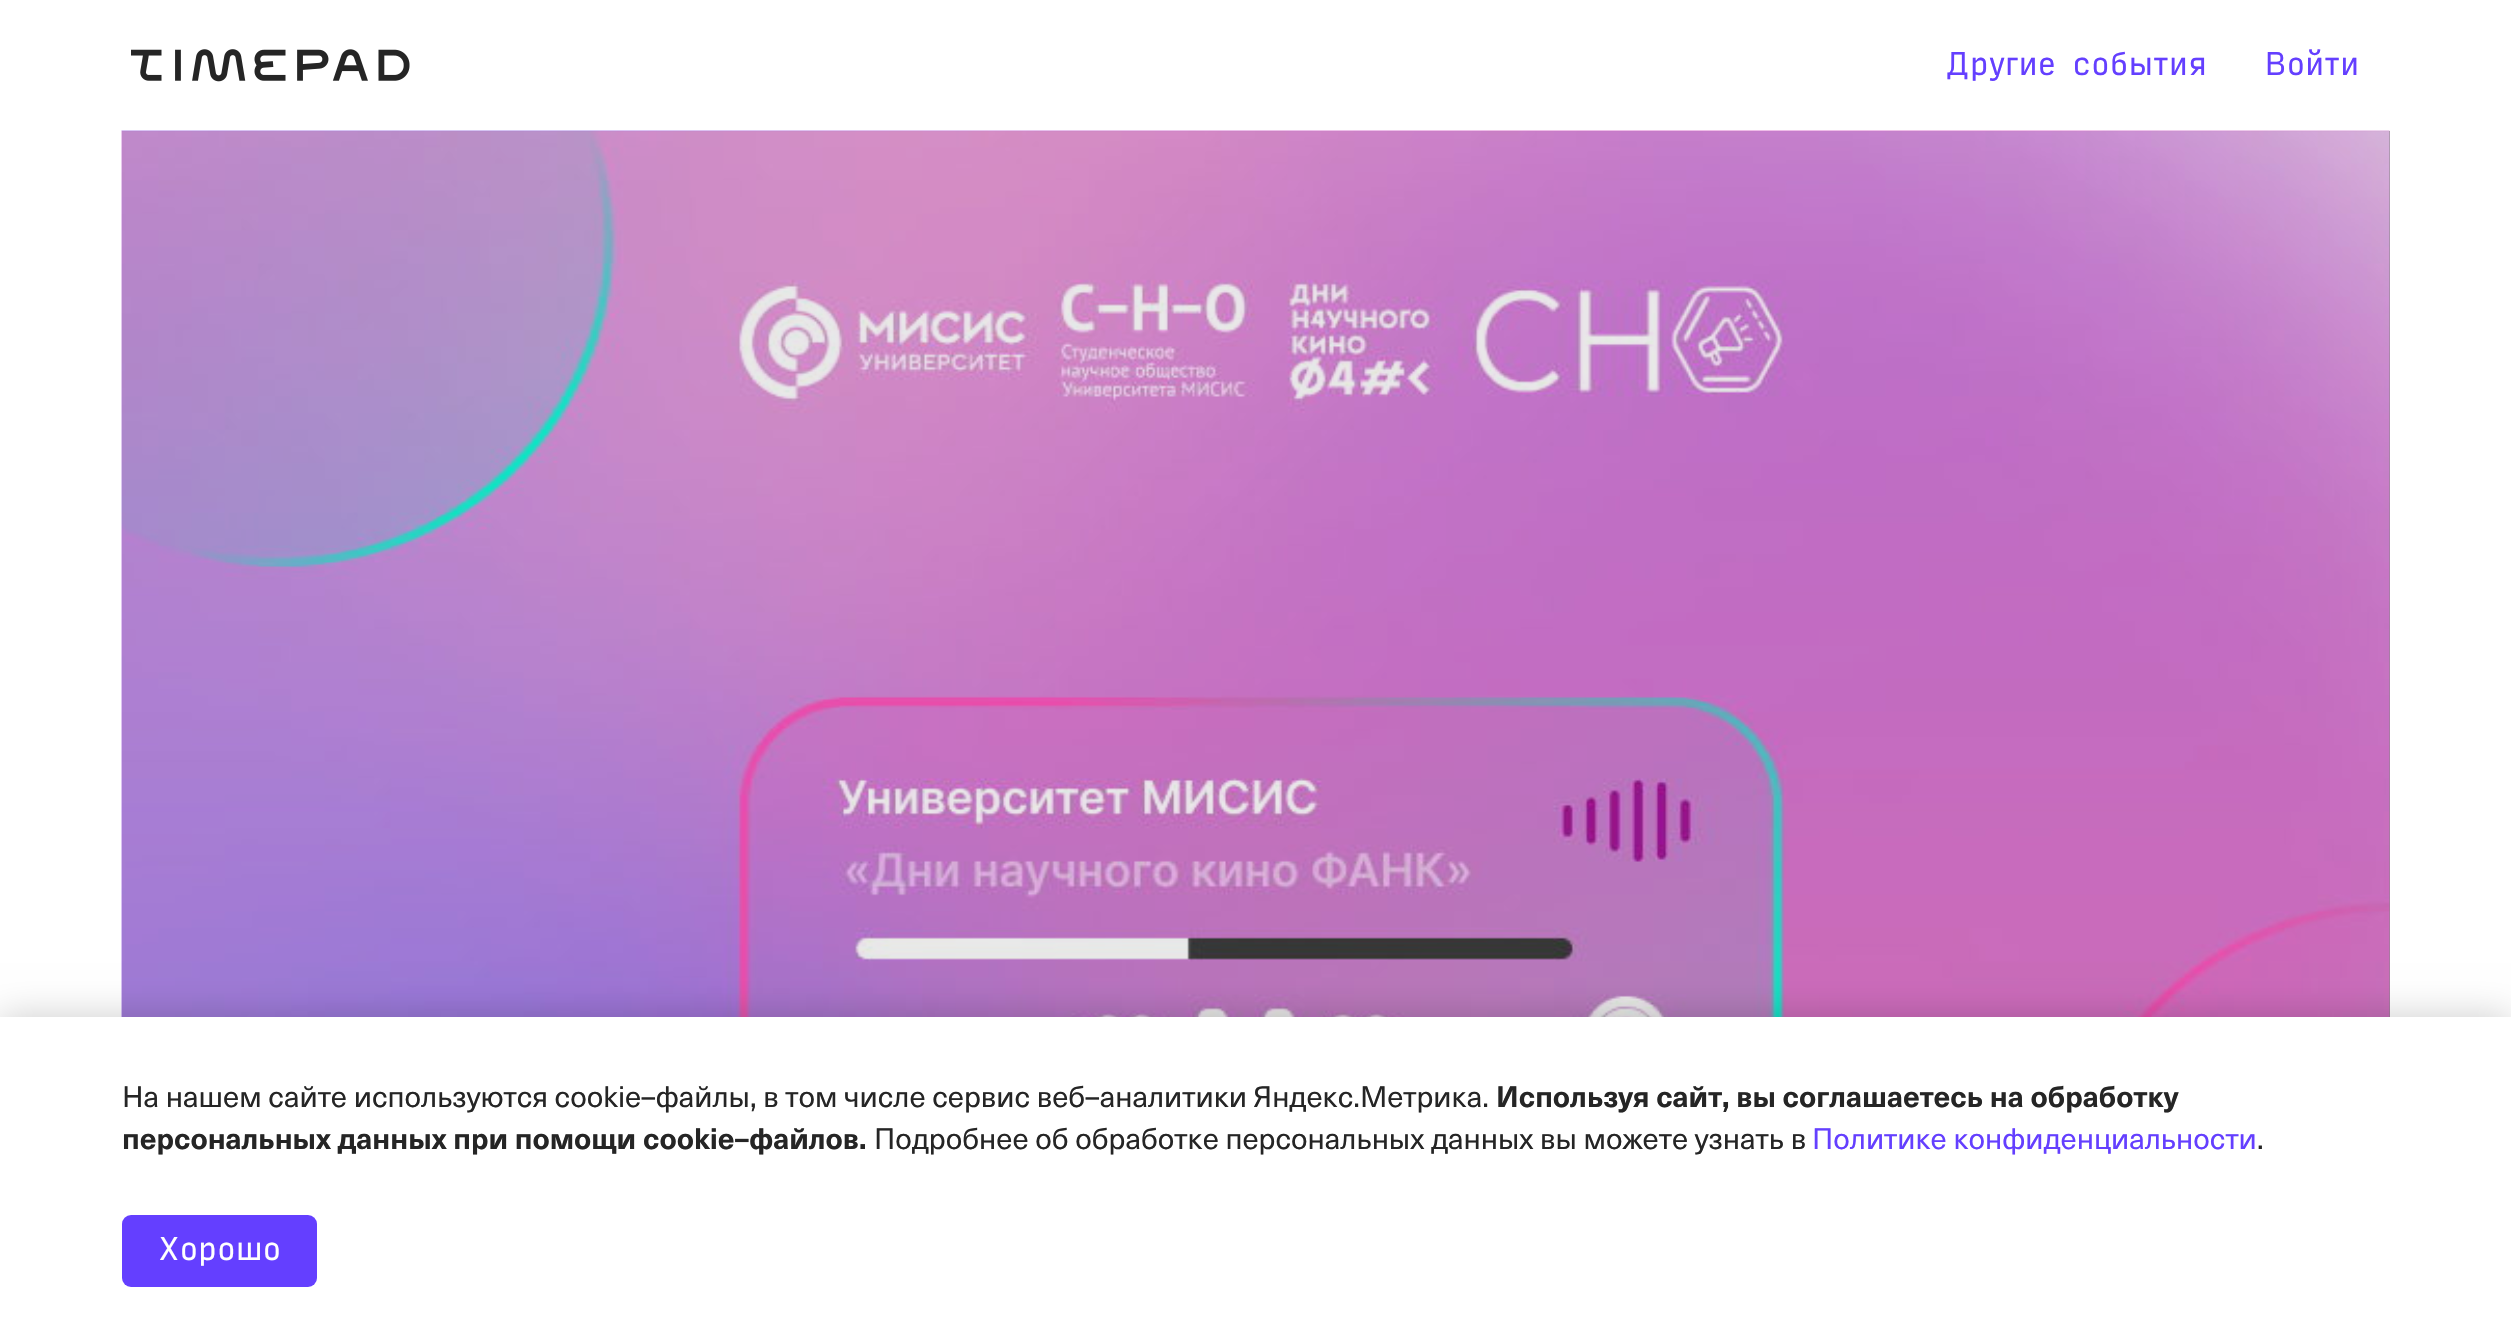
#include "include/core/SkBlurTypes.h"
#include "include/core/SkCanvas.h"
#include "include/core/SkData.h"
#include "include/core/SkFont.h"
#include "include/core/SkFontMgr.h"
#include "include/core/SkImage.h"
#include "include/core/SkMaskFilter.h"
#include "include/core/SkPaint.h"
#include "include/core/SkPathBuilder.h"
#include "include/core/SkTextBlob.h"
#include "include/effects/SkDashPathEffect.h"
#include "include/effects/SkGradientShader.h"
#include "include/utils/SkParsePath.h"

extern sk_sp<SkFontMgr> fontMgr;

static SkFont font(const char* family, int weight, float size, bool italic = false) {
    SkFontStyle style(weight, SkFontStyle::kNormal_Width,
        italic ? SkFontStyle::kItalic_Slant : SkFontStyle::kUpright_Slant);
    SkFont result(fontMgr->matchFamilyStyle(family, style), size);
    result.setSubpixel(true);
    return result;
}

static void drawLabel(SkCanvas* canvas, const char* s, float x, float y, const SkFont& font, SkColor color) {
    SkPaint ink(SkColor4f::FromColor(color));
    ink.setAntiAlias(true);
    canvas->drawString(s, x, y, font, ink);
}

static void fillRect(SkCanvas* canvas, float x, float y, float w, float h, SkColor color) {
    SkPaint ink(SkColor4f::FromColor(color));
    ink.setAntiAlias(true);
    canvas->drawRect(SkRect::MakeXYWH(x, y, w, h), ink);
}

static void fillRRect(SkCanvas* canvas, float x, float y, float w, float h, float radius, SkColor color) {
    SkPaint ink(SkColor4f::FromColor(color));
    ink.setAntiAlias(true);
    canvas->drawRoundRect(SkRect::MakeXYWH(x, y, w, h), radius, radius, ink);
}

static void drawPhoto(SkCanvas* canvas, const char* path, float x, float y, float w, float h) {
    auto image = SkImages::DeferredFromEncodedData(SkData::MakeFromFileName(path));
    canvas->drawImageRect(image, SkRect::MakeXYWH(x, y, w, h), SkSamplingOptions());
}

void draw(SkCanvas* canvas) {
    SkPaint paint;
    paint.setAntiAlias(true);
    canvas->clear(0xFFFFFFFF);
    drawPhoto(canvas, "assets/img1.png", 131, 49, 279, 33);
    SkFont font1 = font("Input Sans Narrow", 400, 31.5f);
    drawLabel(canvas, "Другие события", 1946, 75, font1, 0xFF643FFF);
    drawLabel(canvas, "Войти", 2265, 75, font1, 0xFF643FFF);
    fillRect(canvas, 2389, 131, 1, 886, 0xFF878787);
    drawPhoto(canvas, "assets/img2.png", 121, 130, 2269, 887);
    paint.setColor(0x33000000);
    paint.setMaskFilter(SkMaskFilter::MakeBlur(kNormal_SkBlurStyle, 18));
    canvas->drawRect(SkRect::MakeXYWH(0, 1017, 2511, 306), paint);
    paint.setMaskFilter(nullptr);
    fillRect(canvas, 0, 1017, 2511, 306, 0xFFFFFFFF);
    SkFont font2 = font("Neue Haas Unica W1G", 400, 29.25f);
    drawLabel(canvas, "На нашем сайте используются cookie–файлы, в том числе сервис веб–аналитики Яндекс.Метрика.", 122, 1107, font2, 0xFF252525);
    SkFont font3 = font("Neue Haas Unica W1G", 700, 29.25f);
    drawLabel(canvas, "Используя сайт, вы соглашаетесь на обработку", 1496, 1107, font3, 0xFF252525);
    drawLabel(canvas, "персональных данных при помощи cookie–файлов.", 122, 1149, font3, 0xFF252525);
    drawLabel(canvas, "Подробнее об обработке персональных данных вы можете узнать в", 874, 1149, font2, 0xFF252525);
    drawLabel(canvas, "Политике конфиденциальности", 1812, 1149, font2, 0xFF643FFF);
    drawLabel(canvas, ".", 2257, 1149, font2, 0xFF252525);
    fillRRect(canvas, 122, 1215, 195, 72, 9, 0xFF643FFF);
    drawLabel(canvas, "Хорошо", 158, 1260, font1, 0xFFFFFFFF);
}
